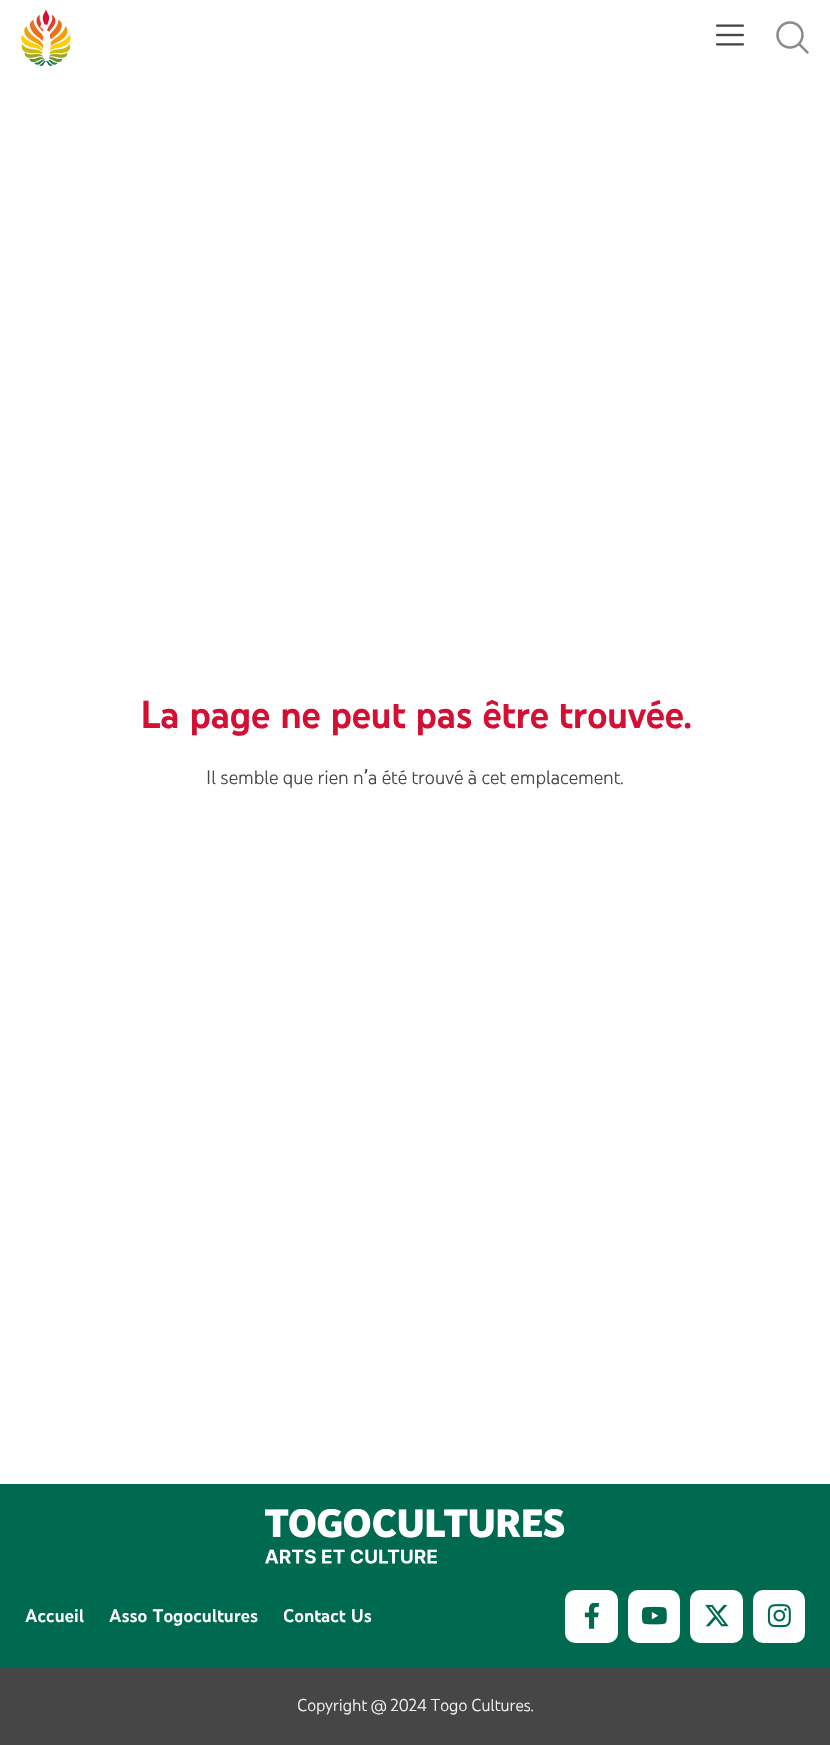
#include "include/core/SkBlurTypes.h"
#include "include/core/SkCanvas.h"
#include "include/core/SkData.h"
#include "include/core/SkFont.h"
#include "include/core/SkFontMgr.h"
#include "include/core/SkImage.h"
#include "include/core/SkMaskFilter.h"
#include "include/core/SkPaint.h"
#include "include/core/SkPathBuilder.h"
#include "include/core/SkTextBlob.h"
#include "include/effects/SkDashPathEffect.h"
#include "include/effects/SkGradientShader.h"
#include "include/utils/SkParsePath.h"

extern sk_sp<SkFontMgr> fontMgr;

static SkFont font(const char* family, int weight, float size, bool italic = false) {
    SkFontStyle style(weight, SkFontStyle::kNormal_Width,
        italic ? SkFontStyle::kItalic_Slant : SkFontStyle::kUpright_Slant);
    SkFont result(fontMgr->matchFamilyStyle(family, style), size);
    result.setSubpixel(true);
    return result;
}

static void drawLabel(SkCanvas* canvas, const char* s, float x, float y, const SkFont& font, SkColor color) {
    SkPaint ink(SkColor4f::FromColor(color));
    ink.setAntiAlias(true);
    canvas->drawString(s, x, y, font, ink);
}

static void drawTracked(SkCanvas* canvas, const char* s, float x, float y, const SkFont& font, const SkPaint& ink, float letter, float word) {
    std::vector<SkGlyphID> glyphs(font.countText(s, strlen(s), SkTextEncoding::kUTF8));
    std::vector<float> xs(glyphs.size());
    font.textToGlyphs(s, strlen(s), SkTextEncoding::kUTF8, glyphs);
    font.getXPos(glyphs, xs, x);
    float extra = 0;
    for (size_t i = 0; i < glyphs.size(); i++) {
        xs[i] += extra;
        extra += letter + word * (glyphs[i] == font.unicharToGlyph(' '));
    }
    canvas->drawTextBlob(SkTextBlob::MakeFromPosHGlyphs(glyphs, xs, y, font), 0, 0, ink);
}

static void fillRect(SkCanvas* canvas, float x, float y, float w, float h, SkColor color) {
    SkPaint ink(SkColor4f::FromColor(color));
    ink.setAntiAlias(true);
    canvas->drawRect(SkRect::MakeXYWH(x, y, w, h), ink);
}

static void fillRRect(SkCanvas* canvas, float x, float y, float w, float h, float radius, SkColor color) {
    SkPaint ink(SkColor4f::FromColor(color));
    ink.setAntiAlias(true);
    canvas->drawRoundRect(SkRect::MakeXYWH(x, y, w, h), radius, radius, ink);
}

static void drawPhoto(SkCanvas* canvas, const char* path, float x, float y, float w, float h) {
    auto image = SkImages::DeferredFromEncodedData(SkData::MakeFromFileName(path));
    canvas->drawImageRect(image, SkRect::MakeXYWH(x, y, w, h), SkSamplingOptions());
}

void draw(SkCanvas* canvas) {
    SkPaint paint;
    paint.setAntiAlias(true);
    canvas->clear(0xFFFFFFFF);
    drawPhoto(canvas, "assets/img1.png", 21, 9, 50, 57);
    drawPhoto(canvas, "assets/img2.png", 716, 24, 28, 22);
    drawPhoto(canvas, "assets/img3.png", 776, 21, 33, 33);
    SkFont font1 = font("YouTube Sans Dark", 700, 40);
    paint.setColor(0xFFD30F33);
    drawTracked(canvas, "La page ne peut pas être trouvée.", 140, 728, font1, paint, -0.6f, 0);
    SkFont font2 = font("YouTube Sans Dark", 400, 20);
    drawLabel(canvas, "Il semble que rien n", 206, 784, font2, 0xFF464646);
    SkFont font3 = font("Roboto", 400, 20);
    drawLabel(canvas, "’", 364, 784, font3, 0xFF464646);
    drawLabel(canvas, "a été trouvé à cet emplacement.", 368, 784, font2, 0xFF464646);
    fillRect(canvas, 0, 1484, 830, 184, 0xFF006A50);
    drawPhoto(canvas, "assets/img4.png", 265, 1509, 300, 55);
    SkFont font4 = font("YouTube Sans Dark", 700, 18.75f);
    drawLabel(canvas, "Accueil", 25, 1622, font4, 0xFFFFFFFF);
    drawLabel(canvas, "Asso Togocultures", 109, 1622, font4, 0xFFFFFFFF);
    drawLabel(canvas, "Contact Us", 283, 1622, font4, 0xFFFFFFFF);
    fillRRect(canvas, 565, 1590, 53, 53, 10, 0xFFFFFFFF);
    drawPhoto(canvas, "assets/img5.png", 584, 1603, 15, 26);
    fillRRect(canvas, 628, 1590, 52, 53, 10, 0xFFFFFFFF);
    drawPhoto(canvas, "assets/img6.png", 641, 1606, 26, 19);
    fillRRect(canvas, 690, 1590, 53, 53, 10, 0xFFFFFFFF);
    drawPhoto(canvas, "assets/img7.png", 705, 1604, 24, 23);
    fillRRect(canvas, 753, 1590, 52, 53, 10, 0xFFFFFFFF);
    drawPhoto(canvas, "assets/img8.png", 767, 1604, 24, 24);
    fillRect(canvas, 0, 1668, 830, 77, 0xFF464646);
    SkFont font5 = font("YouTube Sans Dark", 400, 17.5f);
    drawLabel(canvas, "Copyright @ 2024 Togo Cultures.", 297, 1711, font5, 0xFFF2F2F2);
}
